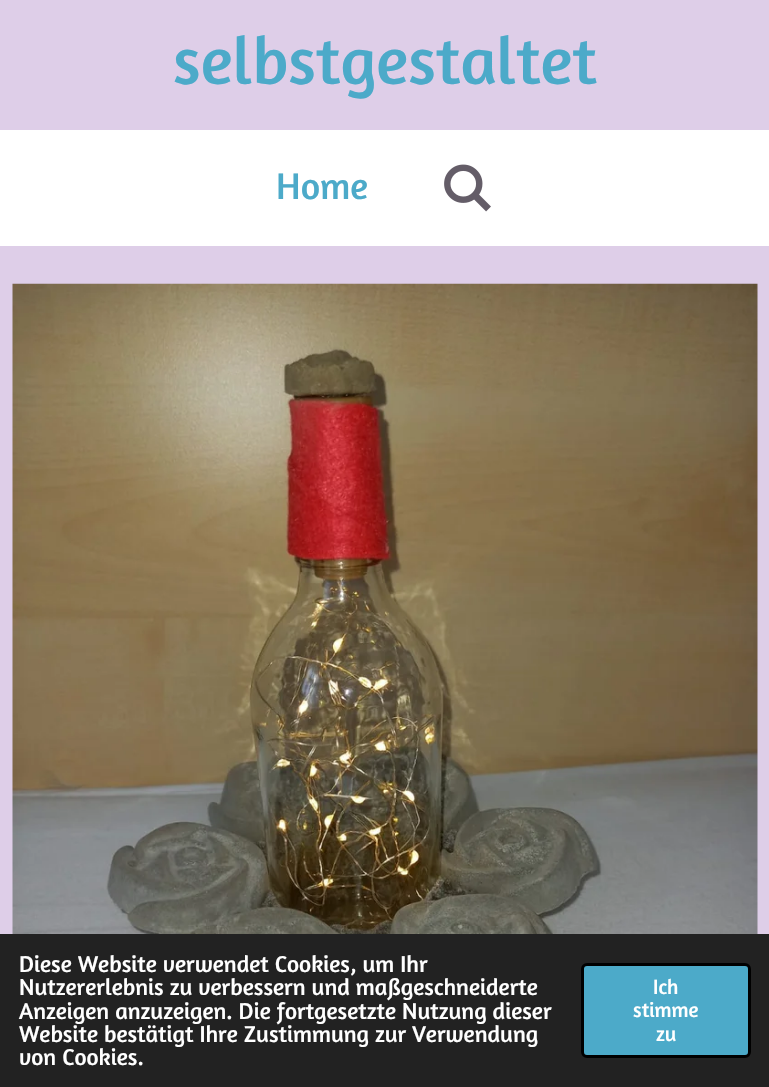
#include "include/core/SkBlurTypes.h"
#include "include/core/SkCanvas.h"
#include "include/core/SkData.h"
#include "include/core/SkFont.h"
#include "include/core/SkFontMgr.h"
#include "include/core/SkImage.h"
#include "include/core/SkMaskFilter.h"
#include "include/core/SkPaint.h"
#include "include/core/SkPathBuilder.h"
#include "include/core/SkTextBlob.h"
#include "include/effects/SkDashPathEffect.h"
#include "include/effects/SkGradientShader.h"
#include "include/utils/SkParsePath.h"

extern sk_sp<SkFontMgr> fontMgr;

static SkFont font(const char* family, int weight, float size, bool italic = false) {
    SkFontStyle style(weight, SkFontStyle::kNormal_Width,
        italic ? SkFontStyle::kItalic_Slant : SkFontStyle::kUpright_Slant);
    SkFont result(fontMgr->matchFamilyStyle(family, style), size);
    result.setSubpixel(true);
    return result;
}

static void drawLabel(SkCanvas* canvas, const char* s, float x, float y, const SkFont& font, SkColor color) {
    SkPaint ink(SkColor4f::FromColor(color));
    ink.setAntiAlias(true);
    canvas->drawString(s, x, y, font, ink);
}

static void fillRect(SkCanvas* canvas, float x, float y, float w, float h, SkColor color) {
    SkPaint ink(SkColor4f::FromColor(color));
    ink.setAntiAlias(true);
    canvas->drawRect(SkRect::MakeXYWH(x, y, w, h), ink);
}

static void drawPhoto(SkCanvas* canvas, const char* path, float x, float y, float w, float h) {
    auto image = SkImages::DeferredFromEncodedData(SkData::MakeFromFileName(path));
    canvas->drawImageRect(image, SkRect::MakeXYWH(x, y, w, h), SkSamplingOptions());
}

void draw(SkCanvas* canvas) {
    SkPaint paint;
    paint.setAntiAlias(true);
    canvas->clear(0xFFDECEE8);
    SkFont font1 = font("Amaranth", 400, 67.5f);
    drawLabel(canvas, "selbstgestaltet", 173, 84, font1, 0xFF4CAAC9);
    fillRect(canvas, 0, 130, 769, 116, 0xFFFFFFFF);
    SkFont font2 = font("Amaranth", 400, 37.5f);
    drawLabel(canvas, "Home", 276, 199, font2, 0xFF4CAAC9);
    drawPhoto(canvas, "assets/img1.png", 444, 164, 47, 48);
    drawPhoto(canvas, "assets/img2.png", 12, 283, 746, 651);
    fillRect(canvas, 0, 934, 769, 153, 0xFF222222);
    SkFont font3 = font("Amaranth", 400, 23.4f);
    drawLabel(canvas, "Diese Website verwendet Cookies, um Ihr", 19, 972, font3, 0xFFFFFFFF);
    drawLabel(canvas, "Nutzererlebnis zu verbessern und maßgeschneiderte", 19, 995, font3, 0xFFFFFFFF);
    drawLabel(canvas, "Anzeigen anzuzeigen. Die fortgesetzte Nutzung dieser", 19, 1019, font3, 0xFFFFFFFF);
    drawLabel(canvas, "Website bestätigt Ihre Zustimmung zur Verwendung", 19, 1042, font3, 0xFFFFFFFF);
    drawLabel(canvas, "von Cookies.", 19, 1065, font3, 0xFFFFFFFF);
    paint.setColor(0xFF4CAAC9);
    canvas->drawRoundRect(SkRect::MakeXYWH(582.5f, 964.5f, 167, 92), 4.5f, 4.5f, paint);
    paint.setStroke(true);
    paint.setStrokeWidth(3);
    paint.setColor(0xFF000000);
    canvas->drawRoundRect(SkRect::MakeXYWH(582.5f, 964.5f, 167, 92), 4.5f, 4.5f, paint);
    SkFont font4 = font("Amaranth", 400, 21);
    drawLabel(canvas, "Ich", 653, 994, font4, 0xFFFFFFFF);
    drawLabel(canvas, "stimme", 633, 1017, font4, 0xFFFFFFFF);
    drawLabel(canvas, "zu", 656, 1041, font4, 0xFFFFFFFF);
}
